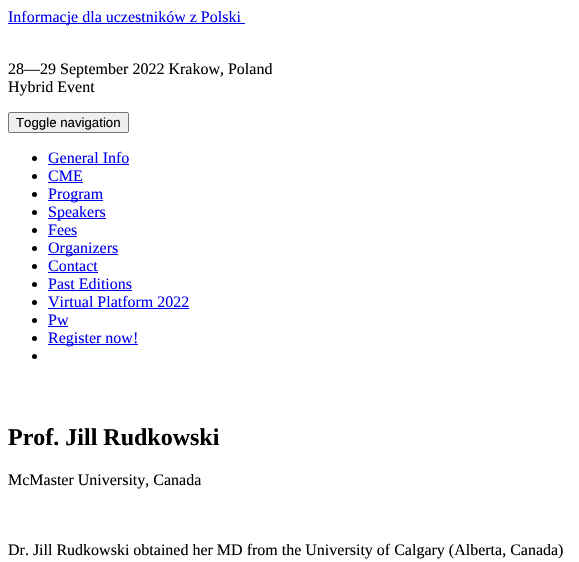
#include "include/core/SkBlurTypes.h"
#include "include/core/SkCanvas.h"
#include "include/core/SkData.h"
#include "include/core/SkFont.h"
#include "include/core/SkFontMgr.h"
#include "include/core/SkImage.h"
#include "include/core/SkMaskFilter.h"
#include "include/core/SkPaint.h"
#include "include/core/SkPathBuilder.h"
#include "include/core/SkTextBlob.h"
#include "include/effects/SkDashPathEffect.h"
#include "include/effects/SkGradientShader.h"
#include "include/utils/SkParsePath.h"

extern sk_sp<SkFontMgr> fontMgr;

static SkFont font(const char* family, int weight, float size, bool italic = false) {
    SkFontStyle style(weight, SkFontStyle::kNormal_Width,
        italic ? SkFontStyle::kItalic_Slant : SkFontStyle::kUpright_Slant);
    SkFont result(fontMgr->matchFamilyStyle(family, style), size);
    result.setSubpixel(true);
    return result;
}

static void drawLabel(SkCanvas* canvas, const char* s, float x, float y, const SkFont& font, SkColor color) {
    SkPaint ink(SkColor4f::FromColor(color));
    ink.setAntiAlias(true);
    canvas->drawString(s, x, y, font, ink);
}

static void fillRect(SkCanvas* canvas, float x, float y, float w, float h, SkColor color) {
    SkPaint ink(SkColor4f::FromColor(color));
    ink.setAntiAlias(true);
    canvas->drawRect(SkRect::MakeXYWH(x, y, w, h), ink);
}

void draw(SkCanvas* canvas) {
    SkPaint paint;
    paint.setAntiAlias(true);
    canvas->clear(0xFFFFFFFF);
    fillRect(canvas, 8, 23, 237, 1, 0xFF0000EE);
    SkFont font1 = font("Liberation Serif", 400, 16);
    drawLabel(canvas, "Informacje dla uczestników z Polski", 8, 22, font1, 0xFF0000EE);
    drawLabel(canvas, "28—29 September 2022 Krakow, Poland", 8, 74, font1, 0xFF000000);
    drawLabel(canvas, "Hybrid Event", 8, 92, font1, 0xFF000000);
    paint.setColor(0xFFEFEFEF);
    canvas->drawRoundRect(SkRect::MakeXYWH(8.5f, 112.5f, 120, 20), 1.5f, 1.5f, paint);
    paint.setStroke(true);
    paint.setStrokeWidth(1);
    paint.setColor(0xFF767676);
    canvas->drawRoundRect(SkRect::MakeXYWH(8.5f, 112.5f, 120, 20), 1.5f, 1.5f, paint);
    SkFont font2 = font("Liberation Sans", 400, 13.25f);
    drawLabel(canvas, "Toggle navigation", 16, 127, font2, 0xFF000000);
    paint.setStroke(false);
    paint.setColor(0xFF000000);
    canvas->drawCircle(34.5f, 158.5f, 2.5f, paint);
    drawLabel(canvas, "General Info", 48, 163, font1, 0xFF0000EE);
    fillRect(canvas, 48, 164, 81, 1, 0xFF0000EE);
    canvas->drawCircle(34.5f, 176.5f, 2.5f, paint);
    drawLabel(canvas, "CME", 48, 181, font1, 0xFF0000EE);
    fillRect(canvas, 48, 182, 35, 1, 0xFF0000EE);
    canvas->drawCircle(34.5f, 194.5f, 2.5f, paint);
    fillRect(canvas, 48, 200, 55, 1, 0xFF0000EE);
    drawLabel(canvas, "Program", 48, 199, font1, 0xFF0000EE);
    canvas->drawCircle(34.5f, 212.5f, 2.5f, paint);
    fillRect(canvas, 48, 218, 58, 1, 0xFF0000EE);
    drawLabel(canvas, "Speakers", 48, 217, font1, 0xFF0000EE);
    canvas->drawCircle(34.5f, 230.5f, 2.5f, paint);
    drawLabel(canvas, "Fees", 48, 235, font1, 0xFF0000EE);
    fillRect(canvas, 48, 236, 29, 1, 0xFF0000EE);
    canvas->drawCircle(34.5f, 248.5f, 2.5f, paint);
    fillRect(canvas, 48, 254, 70, 1, 0xFF0000EE);
    drawLabel(canvas, "Organizers", 48, 253, font1, 0xFF0000EE);
    canvas->drawCircle(34.5f, 266.5f, 2.5f, paint);
    drawLabel(canvas, "Contact", 48, 271, font1, 0xFF0000EE);
    fillRect(canvas, 48, 272, 50, 1, 0xFF0000EE);
    canvas->drawCircle(34.5f, 284.5f, 2.5f, paint);
    drawLabel(canvas, "Past Editions", 48, 289, font1, 0xFF0000EE);
    fillRect(canvas, 48, 290, 84, 1, 0xFF0000EE);
    canvas->drawCircle(34.5f, 302.5f, 2.5f, paint);
    drawLabel(canvas, "Virtual Platform 2022", 48, 307, font1, 0xFF0000EE);
    fillRect(canvas, 48, 308, 141, 1, 0xFF0000EE);
    canvas->drawCircle(34.5f, 320.5f, 2.5f, paint);
    drawLabel(canvas, "Pw", 48, 325, font1, 0xFF0000EE);
    fillRect(canvas, 48, 326, 20, 1, 0xFF0000EE);
    canvas->drawCircle(34.5f, 338.5f, 2.5f, paint);
    fillRect(canvas, 48, 344, 90, 1, 0xFF0000EE);
    drawLabel(canvas, "Register now!", 48, 343, font1, 0xFF0000EE);
    canvas->drawCircle(34.5f, 356.5f, 2.5f, paint);
    SkFont font3 = font("Liberation Serif", 700, 24);
    drawLabel(canvas, "Prof. Jill Rudkowski", 8, 445, font3, 0xFF000000);
    drawLabel(canvas, "McMaster University, Canada", 8, 485, font1, 0xFF000000);
    drawLabel(canvas, "Dr. Jill Rudkowski obtained her MD from the University of Calgary (Alberta, Canada)", 8, 555, font1, 0xFF000000);
}
